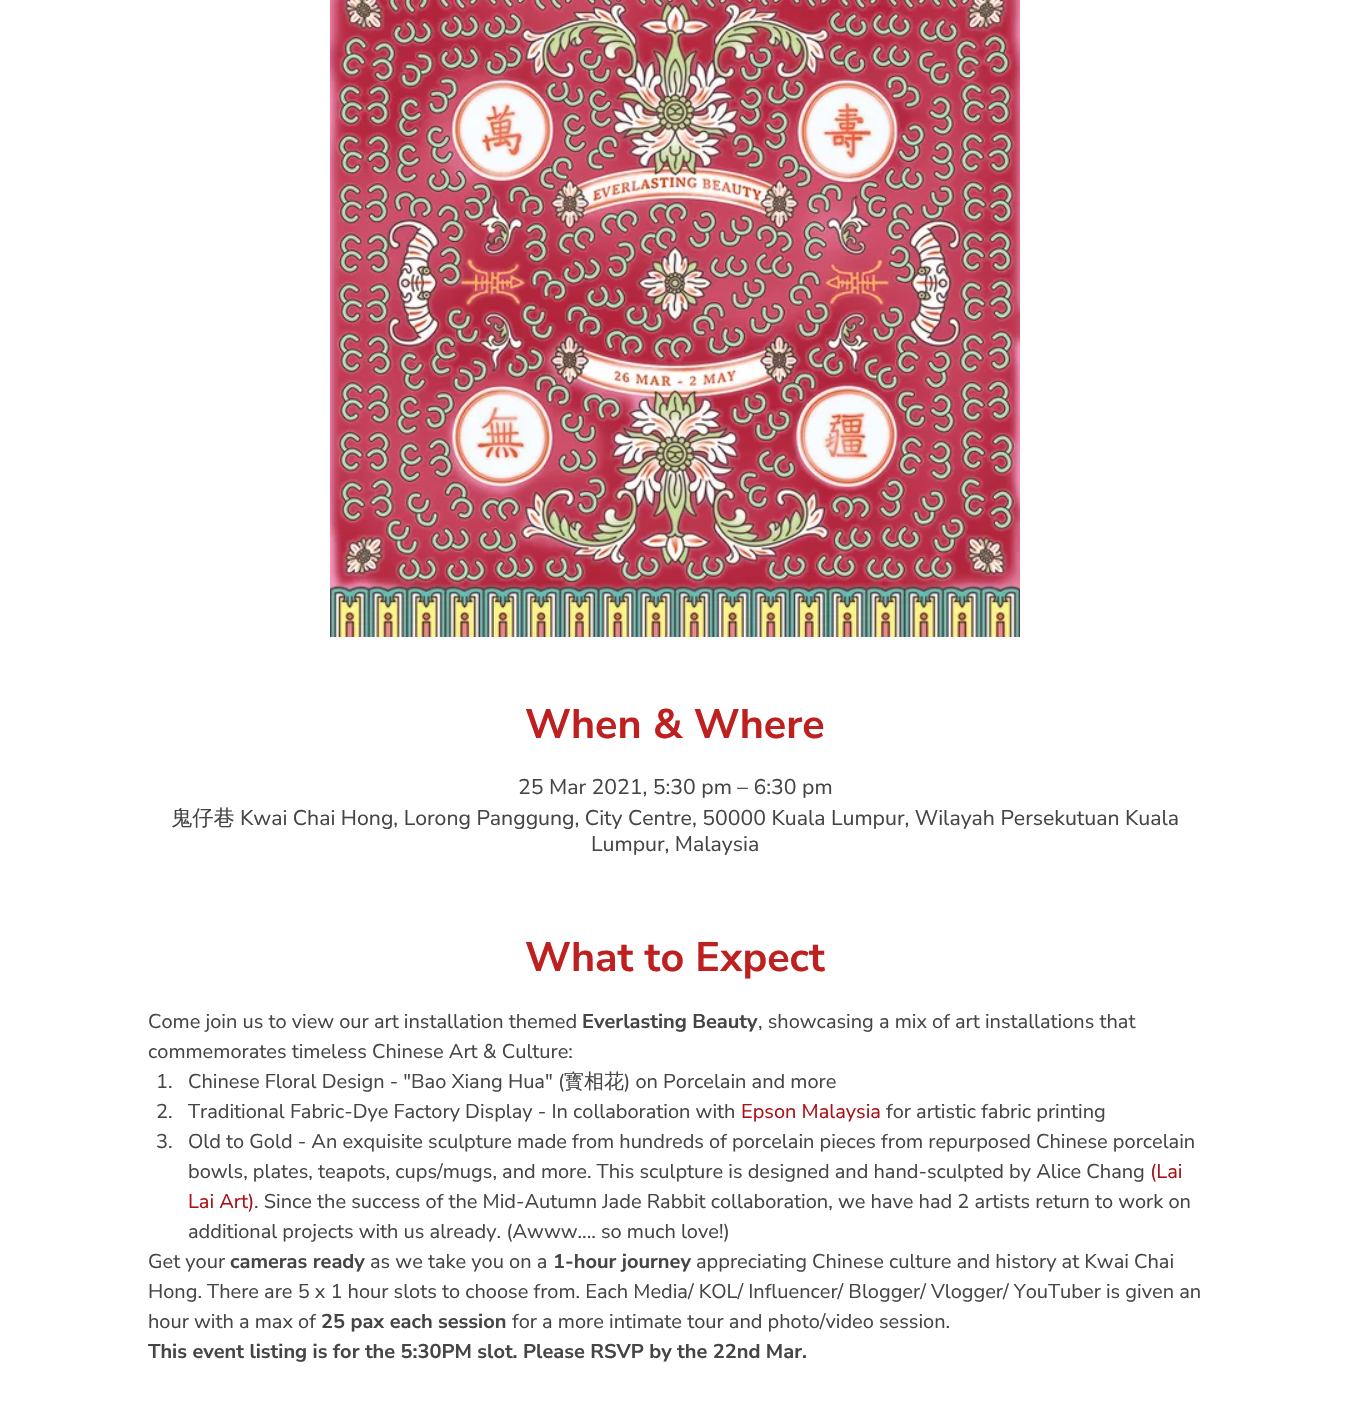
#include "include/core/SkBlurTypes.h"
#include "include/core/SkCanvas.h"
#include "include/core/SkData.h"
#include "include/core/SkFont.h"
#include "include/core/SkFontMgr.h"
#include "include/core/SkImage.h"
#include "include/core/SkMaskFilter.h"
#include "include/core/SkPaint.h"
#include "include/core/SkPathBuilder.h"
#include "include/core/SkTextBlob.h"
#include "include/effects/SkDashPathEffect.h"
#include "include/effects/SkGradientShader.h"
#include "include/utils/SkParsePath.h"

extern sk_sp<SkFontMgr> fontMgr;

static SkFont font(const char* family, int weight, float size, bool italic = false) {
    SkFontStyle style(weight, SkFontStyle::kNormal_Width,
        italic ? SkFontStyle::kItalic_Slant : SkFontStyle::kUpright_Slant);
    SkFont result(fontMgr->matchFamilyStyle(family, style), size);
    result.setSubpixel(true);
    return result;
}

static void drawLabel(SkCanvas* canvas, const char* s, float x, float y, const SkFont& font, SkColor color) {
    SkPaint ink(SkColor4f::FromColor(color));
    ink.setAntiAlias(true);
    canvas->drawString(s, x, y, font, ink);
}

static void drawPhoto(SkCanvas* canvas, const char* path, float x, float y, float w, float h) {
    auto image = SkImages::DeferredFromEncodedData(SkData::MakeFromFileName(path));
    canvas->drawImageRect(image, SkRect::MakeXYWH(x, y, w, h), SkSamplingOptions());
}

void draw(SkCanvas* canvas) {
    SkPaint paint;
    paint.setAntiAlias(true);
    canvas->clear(0xFFFFFFFF);
    drawPhoto(canvas, "assets/img1.png", 330, 0, 690, 637);
    SkFont font1 = font("Nunito Sans", 700, 41.25f);
    drawLabel(canvas, "When & Where", 525, 738, font1, 0xFFBE2020);
    SkFont font2 = font("Nunito Sans", 400, 21.25f);
    drawLabel(canvas, "25 Mar 2021, 5:30 pm – 6:30 pm", 518, 794, font2, 0xFF444547);
    SkFont font3 = font("WenQuanYi Zen Hei", 500, 21.25f);
    drawLabel(canvas, "鬼仔巷", 171, 825, font3, 0xFF444547);
    drawLabel(canvas, "Kwai Chai Hong, Lorong Panggung, City Centre, 50000 Kuala Lumpur, Wilayah Persekutuan Kuala", 240, 825, font2, 0xFF444547);
    drawLabel(canvas, "Lumpur, Malaysia", 591, 851, font2, 0xFF444547);
    drawLabel(canvas, "What to Expect", 525, 971, font1, 0xFFBE2020);
    SkFont font4 = font("Nunito Sans", 400, 20);
    drawLabel(canvas, "Come join us to view our art installation themed", 148, 1028, font4, 0xFF444547);
    SkFont font5 = font("Nunito Sans", 700, 20);
    drawLabel(canvas, "Everlasting Beauty", 582, 1028, font5, 0xFF444547);
    drawLabel(canvas, ", showcasing a mix of art installations that", 758, 1028, font4, 0xFF444547);
    drawLabel(canvas, "commemorates timeless Chinese Art & Culture:", 148, 1058, font4, 0xFF444547);
    drawLabel(canvas, "1.", 156, 1088, font4, 0xFF444547);
    drawLabel(canvas, "Chinese Floral Design - \"Bao Xiang Hua\" (", 188, 1088, font4, 0xFF444547);
    SkFont font6 = font("WenQuanYi Zen Hei", 500, 20);
    drawLabel(canvas, "寳相花", 564, 1088, font6, 0xFF444547);
    drawLabel(canvas, ") on Porcelain and more", 624, 1088, font4, 0xFF444547);
    drawLabel(canvas, "2.", 156, 1118, font4, 0xFF444547);
    drawLabel(canvas, "Traditional Fabric-Dye Factory Display - In collaboration with", 188, 1118, font4, 0xFF444547);
    drawLabel(canvas, "Epson Malaysia", 741, 1118, font4, 0xFFAA1015);
    drawLabel(canvas, "for artistic fabric printing", 886, 1118, font4, 0xFF444547);
    drawLabel(canvas, "3.", 156, 1148, font4, 0xFF444547);
    drawLabel(canvas, "Old to Gold - An exquisite sculpture made from hundreds of porcelain pieces from repurposed Chinese porcelain", 188, 1148, font4, 0xFF444547);
    drawLabel(canvas, "bowls, plates, teapots, cups/mugs, and more. This sculpture is designed and hand-sculpted by Alice Chang", 188, 1178, font4, 0xFF444547);
    drawLabel(canvas, "(Lai", 1150, 1178, font4, 0xFFAA1015);
    drawLabel(canvas, "Lai Art)", 188, 1208, font4, 0xFFAA1015);
    drawLabel(canvas, ". Since the success of the Mid-Autumn Jade Rabbit collaboration, we have had 2 artists return to work on", 254, 1208, font4, 0xFF444547);
    drawLabel(canvas, "additional projects with us already. (Awww.... so much love!)", 188, 1238, font4, 0xFF444547);
    drawLabel(canvas, "Get your", 148, 1268, font4, 0xFF444547);
    drawLabel(canvas, "cameras ready", 230, 1268, font5, 0xFF444547);
    drawLabel(canvas, "as we take you on a", 370, 1268, font4, 0xFF444547);
    drawLabel(canvas, "1-hour journey", 553, 1268, font5, 0xFF444547);
    drawLabel(canvas, "appreciating Chinese culture and history at Kwai Chai", 696, 1268, font4, 0xFF444547);
    drawLabel(canvas, "Hong. There are 5 x 1 hour slots to choose from. Each Media/ KOL/ Influencer/ Blogger/ Vlogger/ YouTuber is given an", 148, 1298, font4, 0xFF444547);
    drawLabel(canvas, "hour with a max of", 148, 1328, font4, 0xFF444547);
    drawLabel(canvas, "25 pax each session", 321, 1328, font5, 0xFF444547);
    drawLabel(canvas, "for a more intimate tour and photo/video session.", 512, 1328, font4, 0xFF444547);
    drawLabel(canvas, "This event listing is for the 5:30PM slot. Please RSVP by the 22nd Mar.", 148, 1358, font5, 0xFF444547);
}
